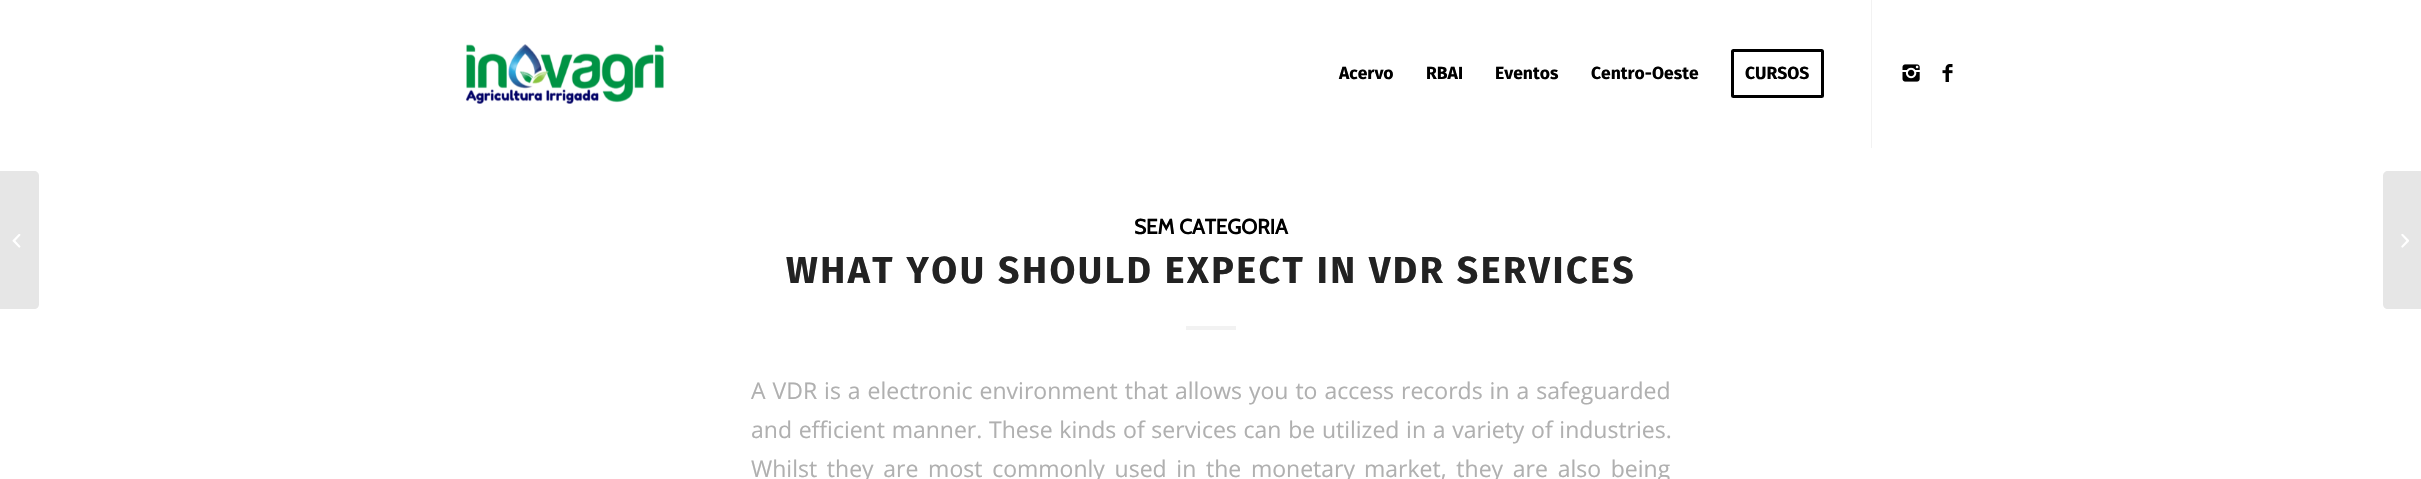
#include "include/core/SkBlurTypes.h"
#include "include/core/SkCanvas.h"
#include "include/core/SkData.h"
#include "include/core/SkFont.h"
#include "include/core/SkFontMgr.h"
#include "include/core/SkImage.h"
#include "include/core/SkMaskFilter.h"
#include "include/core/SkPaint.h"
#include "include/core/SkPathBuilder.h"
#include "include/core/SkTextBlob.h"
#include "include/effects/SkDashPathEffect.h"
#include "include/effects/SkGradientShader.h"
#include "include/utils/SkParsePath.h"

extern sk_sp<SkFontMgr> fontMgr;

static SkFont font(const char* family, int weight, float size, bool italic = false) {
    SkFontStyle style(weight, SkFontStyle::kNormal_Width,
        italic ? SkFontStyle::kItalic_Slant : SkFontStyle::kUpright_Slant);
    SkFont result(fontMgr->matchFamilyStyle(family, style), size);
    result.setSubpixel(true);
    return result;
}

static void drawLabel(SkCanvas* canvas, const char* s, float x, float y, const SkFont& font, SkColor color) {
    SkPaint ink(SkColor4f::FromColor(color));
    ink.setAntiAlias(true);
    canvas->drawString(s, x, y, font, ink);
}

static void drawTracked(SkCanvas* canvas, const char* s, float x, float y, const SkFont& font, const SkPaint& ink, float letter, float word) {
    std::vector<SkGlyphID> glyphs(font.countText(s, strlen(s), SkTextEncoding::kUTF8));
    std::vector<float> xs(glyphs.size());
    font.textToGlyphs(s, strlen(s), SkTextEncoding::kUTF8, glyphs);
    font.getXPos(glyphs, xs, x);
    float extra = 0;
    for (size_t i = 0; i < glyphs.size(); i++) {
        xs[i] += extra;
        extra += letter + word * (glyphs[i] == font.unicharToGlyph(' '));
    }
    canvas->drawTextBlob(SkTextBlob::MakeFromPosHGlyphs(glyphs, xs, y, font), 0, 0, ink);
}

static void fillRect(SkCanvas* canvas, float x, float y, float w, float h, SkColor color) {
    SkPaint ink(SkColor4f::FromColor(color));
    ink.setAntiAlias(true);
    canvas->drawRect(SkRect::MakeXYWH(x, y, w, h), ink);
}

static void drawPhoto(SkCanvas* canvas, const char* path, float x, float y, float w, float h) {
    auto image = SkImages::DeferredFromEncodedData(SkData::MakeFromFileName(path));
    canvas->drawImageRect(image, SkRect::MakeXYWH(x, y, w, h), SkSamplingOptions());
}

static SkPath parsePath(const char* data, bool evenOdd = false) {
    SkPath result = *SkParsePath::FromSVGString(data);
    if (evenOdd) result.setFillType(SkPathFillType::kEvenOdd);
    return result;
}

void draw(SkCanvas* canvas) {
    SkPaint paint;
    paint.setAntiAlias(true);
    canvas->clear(0xFFFFFFFF);
    drawPhoto(canvas, "assets/img1.png", 465, 44, 199, 60);
    fillRect(canvas, 1871, 0, 1, 148, 0xFFF2F2F2);
    SkFont font1 = font("Fira Sans", 700, 17.5f);
    drawLabel(canvas, "Acervo", 1339, 79, font1, 0xFF000000);
    drawLabel(canvas, "RBAI", 1426, 79, font1, 0xFF000000);
    drawLabel(canvas, "Eventos", 1495, 79, font1, 0xFF000000);
    drawLabel(canvas, "Centro-Oeste", 1591, 79, font1, 0xFF000000);
    paint.setStroke(true);
    paint.setStrokeWidth(3);
    paint.setColor(0xFF000000);
    canvas->drawRoundRect(SkRect::MakeXYWH(1732.5f, 50.5f, 90, 46), 1, 1, paint);
    drawLabel(canvas, "CURSOS", 1745, 79, font1, 0xFF000000);
    drawPhoto(canvas, "assets/img2.png", 1902, 64, 18, 18);
    drawPhoto(canvas, "assets/img3.png", 1942, 64, 11, 18);
    paint.setStroke(false);
    paint.setColor(0xFFE6E6E6);
    canvas->drawPath(parsePath("M0 171H34C37 171 39 173 39 176V304C39 307 37 309 34 309H0Z"), paint);
    drawPhoto(canvas, "assets/img4.png", 12, 234, 9, 14);
    SkFont font2 = font("Cabin", 700, 20.75f);
    drawLabel(canvas, "SEM CATEGORIA", 1134, 234, font2, 0xFF000000);
    SkFont font3 = font("Fira Sans", 700, 37.5f);
    paint.setColor(0xFF222222);
    drawTracked(canvas, "WHAT YOU SHOULD EXPECT IN VDR SERVICES", 786, 283, font3, paint, 2.5f, 0);
    fillRect(canvas, 1186, 326, 50, 4, 0xFFF2F2F2);
    SkFont font4 = font("Open Sans", 400, 23);
    paint.setColor(0xFFB0B0B0);
    drawTracked(canvas, "A VDR is a electronic environment that allows you to access records in a safeguarded", 751, 399, font4, paint, 0, 1);
    drawTracked(canvas, "and efficient manner. These kinds of services can be utilized in a variety of industries.", 751, 438, font4, paint, 0, 0.75f);
    drawTracked(canvas, "Whilst they are most commonly used in the monetary", 751, 477, font4, paint, 0, 3.75f);
    drawTracked(canvas, "market, they are also being", 1364, 477, font4, paint, 0, 3.75f);
    paint.setColor(0xFFE6E6E6);
    canvas->drawPath(parsePath("M2388 171H2421V309H2388C2385 309 2383 307 2383 304V176C2383 173 2385 171 2388 171Z"), paint);
    drawPhoto(canvas, "assets/img5.png", 2401, 234, 8, 14);
}
